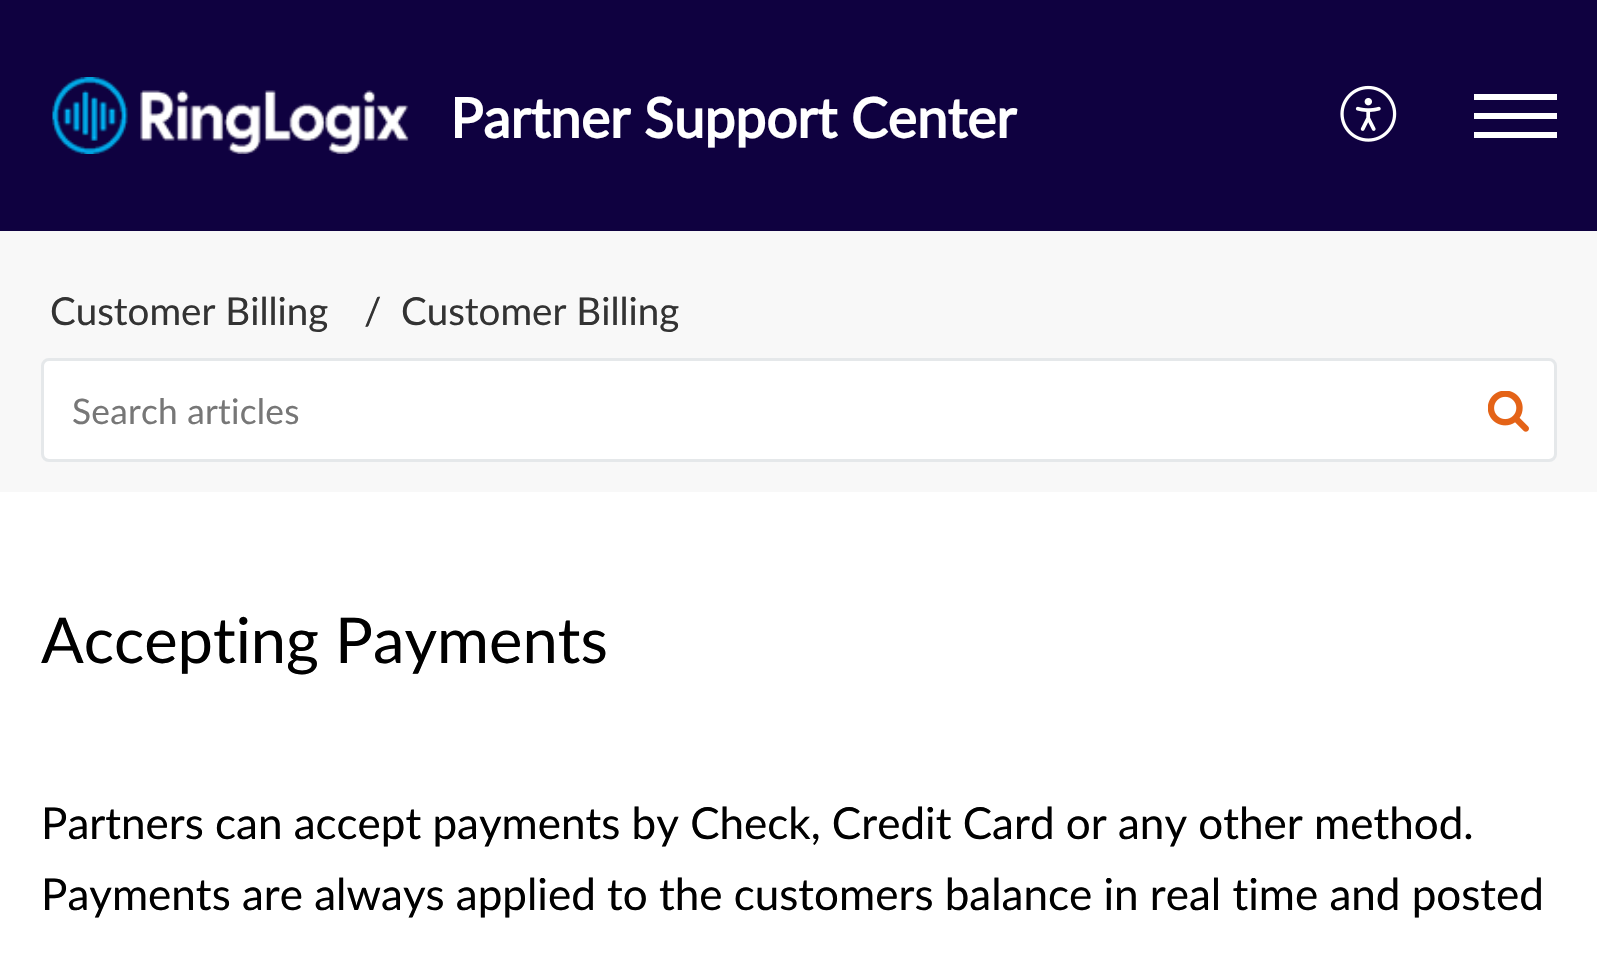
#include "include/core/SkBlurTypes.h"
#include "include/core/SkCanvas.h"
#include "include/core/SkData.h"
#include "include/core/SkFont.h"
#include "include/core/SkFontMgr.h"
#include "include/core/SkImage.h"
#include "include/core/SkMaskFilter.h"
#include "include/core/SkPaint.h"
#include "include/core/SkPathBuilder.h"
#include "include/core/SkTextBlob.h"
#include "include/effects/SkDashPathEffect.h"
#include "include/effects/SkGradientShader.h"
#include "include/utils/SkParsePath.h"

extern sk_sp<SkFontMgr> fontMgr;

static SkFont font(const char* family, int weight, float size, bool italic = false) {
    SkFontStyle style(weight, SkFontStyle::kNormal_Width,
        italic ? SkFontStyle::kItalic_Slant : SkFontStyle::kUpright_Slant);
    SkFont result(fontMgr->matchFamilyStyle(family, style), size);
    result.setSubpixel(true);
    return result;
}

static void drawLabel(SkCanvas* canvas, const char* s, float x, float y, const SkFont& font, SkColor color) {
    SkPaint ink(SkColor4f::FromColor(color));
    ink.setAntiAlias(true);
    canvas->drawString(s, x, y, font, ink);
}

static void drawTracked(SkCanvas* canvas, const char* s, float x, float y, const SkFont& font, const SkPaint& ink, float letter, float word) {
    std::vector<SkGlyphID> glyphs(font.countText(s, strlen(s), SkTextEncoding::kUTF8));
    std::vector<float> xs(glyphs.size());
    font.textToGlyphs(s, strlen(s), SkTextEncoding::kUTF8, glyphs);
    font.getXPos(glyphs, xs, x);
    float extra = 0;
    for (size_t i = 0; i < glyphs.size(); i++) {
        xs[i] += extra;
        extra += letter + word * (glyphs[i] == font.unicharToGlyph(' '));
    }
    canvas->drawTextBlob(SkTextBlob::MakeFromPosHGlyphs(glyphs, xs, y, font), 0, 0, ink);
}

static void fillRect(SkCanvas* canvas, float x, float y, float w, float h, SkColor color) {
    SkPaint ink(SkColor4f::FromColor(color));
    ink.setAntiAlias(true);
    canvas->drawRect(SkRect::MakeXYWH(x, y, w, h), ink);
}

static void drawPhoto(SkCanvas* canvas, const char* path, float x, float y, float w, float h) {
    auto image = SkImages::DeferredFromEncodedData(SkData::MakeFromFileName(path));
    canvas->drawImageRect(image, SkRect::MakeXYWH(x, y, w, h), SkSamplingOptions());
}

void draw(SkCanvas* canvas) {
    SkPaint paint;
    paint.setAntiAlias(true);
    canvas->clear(0xFFFFFFFF);
    fillRect(canvas, 0, 0, 1597, 231, 0xFF0F0140);
    drawPhoto(canvas, "assets/img1.png", 52, 77, 357, 77);
    SkFont font1 = font("Lato", 700, 55);
    drawLabel(canvas, "Partner Support Center", 450, 138, font1, 0xFFFFFFFF);
    drawPhoto(canvas, "assets/img2.png", 1340, 85, 57, 57);
    fillRect(canvas, 1474, 113, 83, 6, 0xFFFFFFFF);
    fillRect(canvas, 1474, 94, 83, 6, 0xFFFFFFFF);
    fillRect(canvas, 1474, 132, 83, 6, 0xFFFFFFFF);
    fillRect(canvas, 0, 231, 1597, 261, 0xFFF8F8F8);
    SkFont font2 = font("Lato", 400, 38.5f);
    drawLabel(canvas, "Customer Billing", 50, 325, font2, 0xFF333333);
    drawLabel(canvas, "/", 364, 325, font2, 0xFF333333);
    drawLabel(canvas, "Customer Billing", 401, 325, font2, 0xFF333333);
    paint.setColor(0xFFFFFFFF);
    canvas->drawRoundRect(SkRect::MakeXYWH(42.5f, 359.5f, 1513, 101), 6.5f, 6.5f, paint);
    paint.setStroke(true);
    paint.setStrokeWidth(3);
    paint.setColor(0xFFE5E8EA);
    canvas->drawRoundRect(SkRect::MakeXYWH(42.5f, 359.5f, 1513, 101), 6.5f, 6.5f, paint);
    SkFont font3 = font("Lato", 400, 35.25f);
    paint.setStroke(false);
    paint.setColor(0xFF777777);
    drawTracked(canvas, "Search articles", 72, 424, font3, paint, 0.25f, 0);
    drawPhoto(canvas, "assets/img3.png", 1488, 391, 41, 41);
    SkFont font4 = font("Lato", 400, 63.25f);
    drawLabel(canvas, "Accepting Payments", 41, 663, font4, 0xFF000000);
    SkFont font5 = font("Lato", 400, 44);
    drawLabel(canvas, "Partners can accept payments by Check, Credit Card or any other method.", 41, 839, font5, 0xFF000000);
    drawLabel(canvas, "Payments are always applied to the customers balance in real time and posted", 41, 910, font5, 0xFF000000);
}
